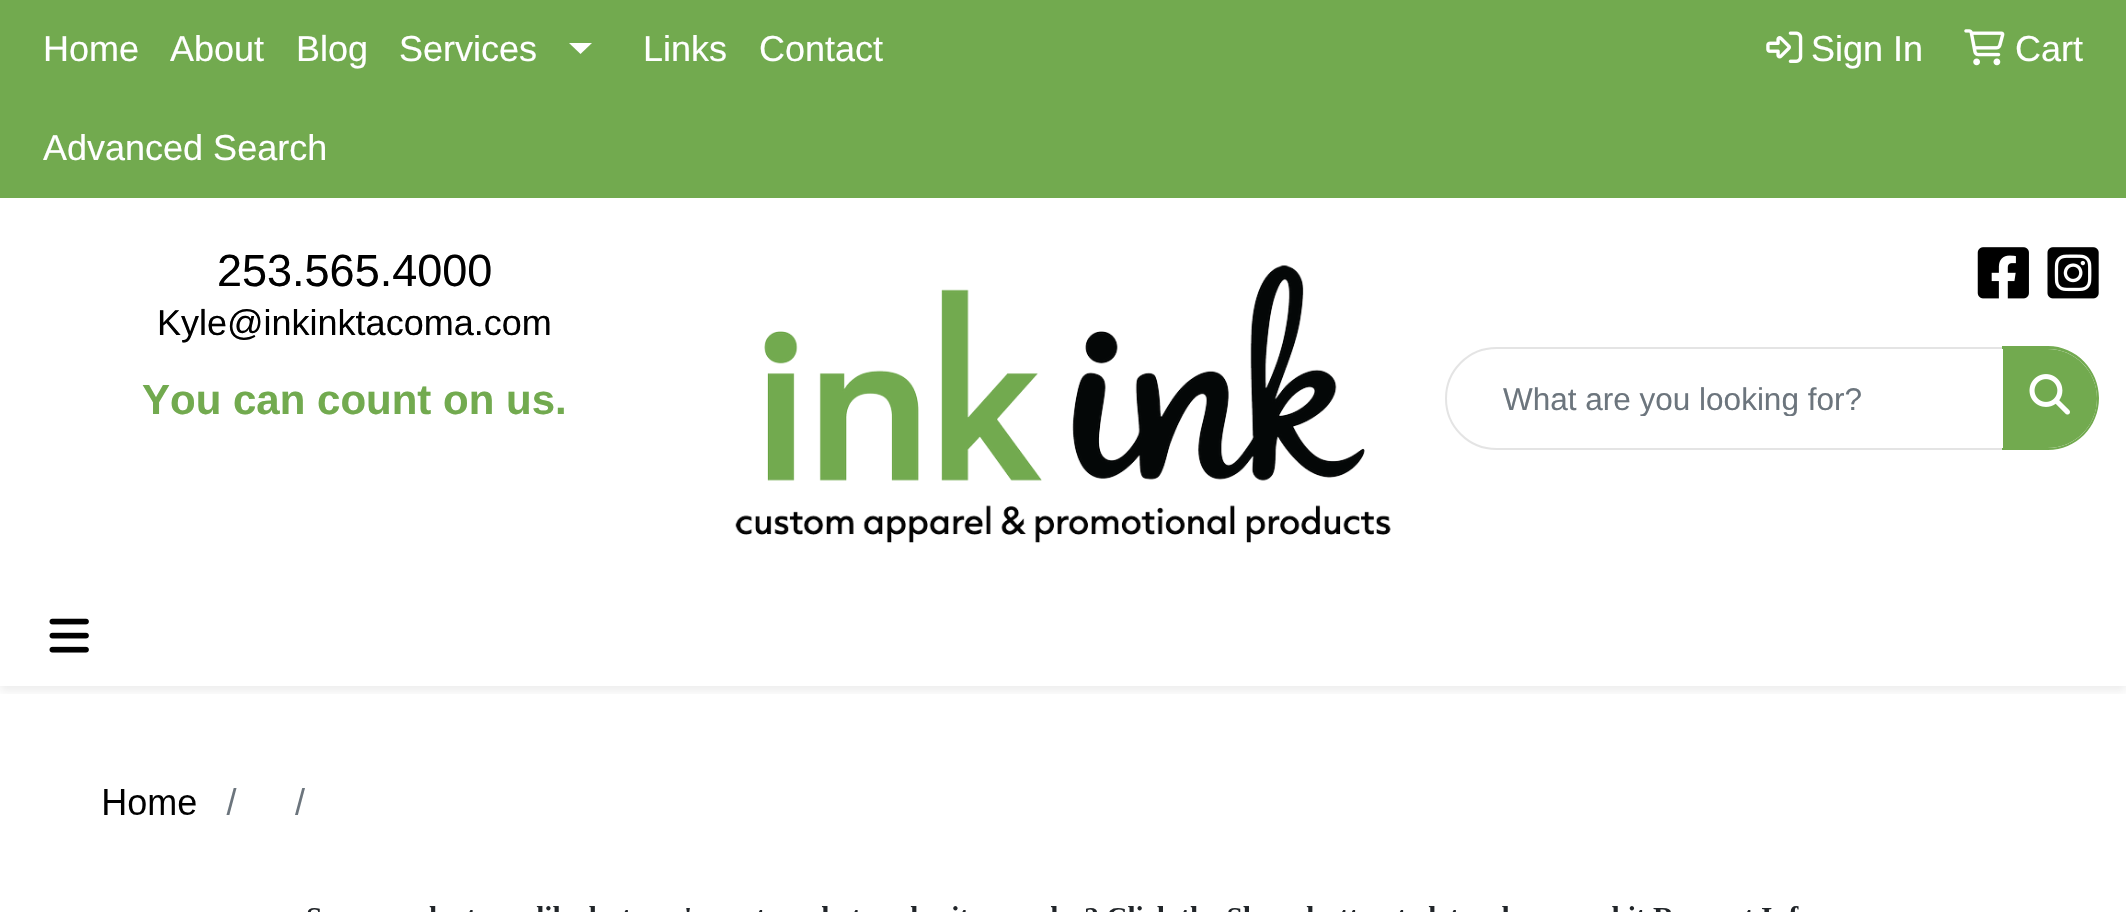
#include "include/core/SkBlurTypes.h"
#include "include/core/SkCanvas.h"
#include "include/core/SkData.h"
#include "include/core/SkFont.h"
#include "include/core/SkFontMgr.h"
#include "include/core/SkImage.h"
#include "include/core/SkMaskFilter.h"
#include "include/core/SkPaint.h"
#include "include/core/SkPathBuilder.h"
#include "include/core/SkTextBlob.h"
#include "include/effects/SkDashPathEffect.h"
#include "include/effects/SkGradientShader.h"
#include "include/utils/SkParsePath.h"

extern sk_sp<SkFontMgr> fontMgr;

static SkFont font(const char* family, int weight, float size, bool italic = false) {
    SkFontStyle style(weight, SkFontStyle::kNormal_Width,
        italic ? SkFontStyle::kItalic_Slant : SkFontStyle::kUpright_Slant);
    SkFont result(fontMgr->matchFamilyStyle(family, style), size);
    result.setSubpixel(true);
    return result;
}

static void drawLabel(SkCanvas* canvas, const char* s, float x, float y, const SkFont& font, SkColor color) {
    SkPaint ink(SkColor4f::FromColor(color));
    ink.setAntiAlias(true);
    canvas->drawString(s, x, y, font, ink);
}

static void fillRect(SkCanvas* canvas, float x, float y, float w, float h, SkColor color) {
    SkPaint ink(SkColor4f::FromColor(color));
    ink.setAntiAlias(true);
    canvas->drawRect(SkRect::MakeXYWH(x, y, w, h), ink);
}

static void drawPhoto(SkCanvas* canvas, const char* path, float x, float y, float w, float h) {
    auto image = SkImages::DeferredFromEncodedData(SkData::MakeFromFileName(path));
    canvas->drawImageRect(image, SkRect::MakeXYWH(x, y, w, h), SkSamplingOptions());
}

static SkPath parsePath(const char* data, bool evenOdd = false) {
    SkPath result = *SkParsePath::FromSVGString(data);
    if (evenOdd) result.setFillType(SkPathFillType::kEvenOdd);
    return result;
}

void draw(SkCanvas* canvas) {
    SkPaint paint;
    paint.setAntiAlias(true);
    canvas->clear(0xFFFFFFFF);
    fillRect(canvas, 0, 0, 2126, 198, 0xFF72AA4F);
    SkFont font1 = font("Liberation Sans", 400, 36);
    drawLabel(canvas, "Home", 43, 61, font1, 0xFFFFFFFF);
    drawLabel(canvas, "About", 170, 61, font1, 0xFFFFFFFF);
    drawLabel(canvas, "Blog", 296, 61, font1, 0xFFFFFFFF);
    drawLabel(canvas, "Services", 399, 61, font1, 0xFFFFFFFF);
    paint.setColor(0xFFFFFFFF);
    canvas->drawPath(parsePath("M569 43H592L580.5 54Z"), paint);
    drawLabel(canvas, "Links", 643, 61, font1, 0xFFFFFFFF);
    drawLabel(canvas, "Contact", 759, 61, font1, 0xFFFFFFFF);
    drawLabel(canvas, "Advanced Search", 43, 160, font1, 0xFFFFFFFF);
    drawPhoto(canvas, "assets/img1.png", 1766, 31, 37, 32);
    drawLabel(canvas, "Sign In", 1811, 61, font1, 0xFFFFFFFF);
    drawPhoto(canvas, "assets/img2.png", 1964, 29, 41, 37);
    drawLabel(canvas, "Cart", 2015, 61, font1, 0xFFFFFFFF);
    SkFont font2 = font("Liberation Sans", 400, 45);
    drawLabel(canvas, "253.565.4000", 217, 286, font2, 0xFF000000);
    drawLabel(canvas, "Kyle@inkinktacoma.com", 157, 335, font1, 0xFF000000);
    SkFont font3 = font("Liberation Sans", 700, 42);
    drawLabel(canvas, "You can count on us.", 142, 414, font3, 0xFF72AA4F);
    drawPhoto(canvas, "assets/img3.png", 735, 265, 656, 278);
    drawPhoto(canvas, "assets/img4.png", 1977, 247, 52, 52);
    drawPhoto(canvas, "assets/img5.png", 2047, 247, 52, 52);
    paint.setStroke(true);
    paint.setStrokeWidth(2);
    paint.setColor(0xFFE4E4E4);
    canvas->drawPath(parsePath("M1496.5 348H2004V449H1496.5C1468.5 449 1446 426.5 1446 398.5C1446 370.5 1468.5 348 1496.5 348Z"), paint);
    canvas->save();
    canvas->clipRect(SkRect::MakeXYWH(1503, 380, 473, 36));
    SkFont font4 = font("Liberation Sans", 400, 31.5f);
    drawLabel(canvas, "What are you looking for?", 1503, 410, font4, 0xFF6C757D);
    canvas->restore();
    paint.setStroke(false);
    paint.setColor(0xFF72AA4F);
    canvas->drawPath(parsePath("M2003 349H2047.5C2075 349 2097 371 2097 398.5C2097 426 2075 448 2047.5 448H2003Z"), paint);
    canvas->drawPath(parsePath("M2002 346H2048C2076 346 2099 370 2099 398C2099 427 2076 450 2048 450H2002ZM2002 349H2048C2075 349 2097 371 2097 398C2097 426 2075 448 2048 448H2002Z", true), paint);
    drawPhoto(canvas, "assets/img6.png", 2029, 374, 41, 41);
    canvas->save();
    canvas->clipRect(SkRect::MakeXYWH(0, 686, 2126, 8));
    paint.setColor(0x12000000);
    paint.setMaskFilter(SkMaskFilter::MakeBlur(kNormal_SkBlurStyle, 4.5f));
    canvas->drawRect(SkRect::MakeXYWH(0, 592, 2126, 99), paint);
    paint.setMaskFilter(nullptr);
    canvas->restore();
    drawPhoto(canvas, "assets/img7.png", 49, 618, 40, 35);
    drawPhoto(canvas, "assets/img8.png", 104, 788, 1695, 124);
}
